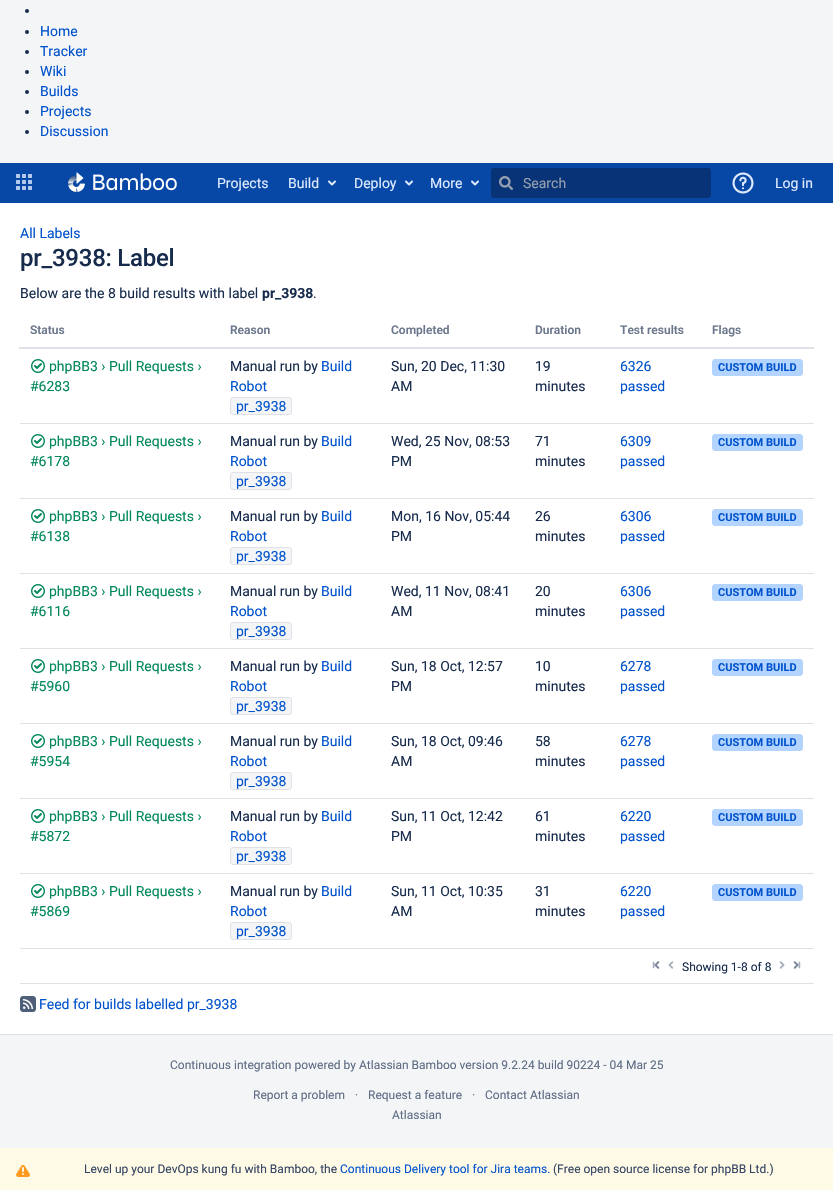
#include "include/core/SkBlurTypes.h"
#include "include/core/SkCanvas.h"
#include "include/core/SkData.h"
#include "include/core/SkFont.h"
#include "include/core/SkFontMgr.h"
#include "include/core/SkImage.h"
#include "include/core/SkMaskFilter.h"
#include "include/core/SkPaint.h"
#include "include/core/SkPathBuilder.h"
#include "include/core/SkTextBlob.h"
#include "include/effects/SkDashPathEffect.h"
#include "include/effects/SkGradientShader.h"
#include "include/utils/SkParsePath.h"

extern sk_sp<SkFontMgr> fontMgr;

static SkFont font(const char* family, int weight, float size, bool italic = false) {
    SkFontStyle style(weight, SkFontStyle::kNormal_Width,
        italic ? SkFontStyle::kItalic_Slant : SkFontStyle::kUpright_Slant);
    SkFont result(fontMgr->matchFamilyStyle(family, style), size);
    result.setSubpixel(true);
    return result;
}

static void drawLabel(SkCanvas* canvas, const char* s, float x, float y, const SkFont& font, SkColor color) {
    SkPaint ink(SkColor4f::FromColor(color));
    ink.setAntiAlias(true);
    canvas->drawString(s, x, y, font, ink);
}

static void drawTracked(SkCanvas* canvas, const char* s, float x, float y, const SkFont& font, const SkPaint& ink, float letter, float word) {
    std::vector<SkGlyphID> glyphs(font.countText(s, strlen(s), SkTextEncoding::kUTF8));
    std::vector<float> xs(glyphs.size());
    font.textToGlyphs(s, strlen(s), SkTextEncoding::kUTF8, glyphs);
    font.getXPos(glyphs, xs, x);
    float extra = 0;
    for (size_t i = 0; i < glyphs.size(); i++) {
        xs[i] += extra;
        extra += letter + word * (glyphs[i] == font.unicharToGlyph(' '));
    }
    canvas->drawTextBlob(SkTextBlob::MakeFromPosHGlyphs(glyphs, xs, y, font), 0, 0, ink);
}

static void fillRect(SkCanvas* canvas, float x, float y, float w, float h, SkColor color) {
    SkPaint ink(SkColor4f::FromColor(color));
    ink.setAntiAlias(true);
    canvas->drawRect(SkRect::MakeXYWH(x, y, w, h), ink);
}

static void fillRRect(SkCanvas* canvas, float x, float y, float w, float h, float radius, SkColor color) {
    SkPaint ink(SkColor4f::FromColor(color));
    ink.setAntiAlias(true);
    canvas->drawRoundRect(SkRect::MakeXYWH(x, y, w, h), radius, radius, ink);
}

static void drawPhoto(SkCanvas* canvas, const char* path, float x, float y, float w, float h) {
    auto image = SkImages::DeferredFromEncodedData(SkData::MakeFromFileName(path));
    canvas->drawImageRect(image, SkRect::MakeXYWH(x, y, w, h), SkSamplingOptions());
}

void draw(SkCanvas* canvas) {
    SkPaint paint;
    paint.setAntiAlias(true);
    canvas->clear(0xFFF4F5F7);
    paint.setColor(0xFF172B4D);
    canvas->drawCircle(27, 11, 2, paint);
    canvas->drawCircle(27, 32, 2, paint);
    SkFont font1 = font("Roboto", 400, 14);
    drawLabel(canvas, "Home", 40, 36, font1, 0xFF0052CC);
    canvas->drawCircle(27, 52, 2, paint);
    drawLabel(canvas, "Tracker", 40, 56, font1, 0xFF0052CC);
    canvas->drawCircle(27, 72, 2, paint);
    drawLabel(canvas, "Wiki", 40, 76, font1, 0xFF0052CC);
    canvas->drawCircle(27, 92, 2, paint);
    drawLabel(canvas, "Builds", 40, 96, font1, 0xFF0052CC);
    canvas->drawCircle(27, 112, 2, paint);
    drawLabel(canvas, "Projects", 40, 116, font1, 0xFF0052CC);
    canvas->drawCircle(27, 132, 2, paint);
    drawLabel(canvas, "Discussion", 40, 136, font1, 0xFF0052CC);
    fillRect(canvas, 0, 163, 833, 40, 0xFF0747A6);
    drawPhoto(canvas, "assets/img1.png", 16, 174, 16, 16);
    drawPhoto(canvas, "assets/img2.png", 68, 172, 109, 20);
    drawLabel(canvas, "Projects", 217, 188, font1, 0xFFDEEBFF);
    drawLabel(canvas, "Build", 288, 188, font1, 0xFFDEEBFF);
    drawPhoto(canvas, "assets/img3.png", 328, 180, 8, 6);
    drawLabel(canvas, "Deploy", 354, 188, font1, 0xFFDEEBFF);
    drawPhoto(canvas, "assets/img3.png", 405, 180, 8, 6);
    drawLabel(canvas, "More", 430, 188, font1, 0xFFDEEBFF);
    drawPhoto(canvas, "assets/img3.png", 471, 180, 8, 6);
    fillRRect(canvas, 491, 168, 220, 30, 3, 0xFF083376);
    drawPhoto(canvas, "assets/img4.png", 499, 176, 14, 14);
    drawLabel(canvas, "Search", 523, 188, font1, 0xFF97A0AF);
    drawPhoto(canvas, "assets/img5.png", 732, 172, 22, 22);
    drawLabel(canvas, "Log in", 775, 188, font1, 0xFFDEEBFF);
    fillRect(canvas, 0, 203, 833, 831, 0xFFFFFFFF);
    fillRect(canvas, 0, 1034, 833, 1, 0xFFDFE1E6);
    drawLabel(canvas, "All Labels", 20, 238, font1, 0xFF0052CC);
    SkFont font2 = font("Roboto", 500, 24);
    drawTracked(canvas, "pr_3938: Label", 20, 266, font2, paint, -0.25f, 0);
    drawLabel(canvas, "Below are the 8 build results with label", 20, 298, font1, 0xFF172B4D);
    SkFont font3 = font("Roboto", 700, 14);
    drawLabel(canvas, "pr_3938", 262, 298, font3, 0xFF172B4D);
    drawLabel(canvas, ".", 313, 298, font1, 0xFF172B4D);
    fillRect(canvas, 19, 347, 795, 2, 0xFFDFE1E6);
    SkFont font4 = font("Roboto", 600, 12);
    drawLabel(canvas, "Status", 30, 334, font4, 0xFF6B778C);
    drawLabel(canvas, "Reason", 230, 334, font4, 0xFF6B778C);
    drawLabel(canvas, "Completed", 391, 334, font4, 0xFF6B778C);
    drawLabel(canvas, "Duration", 535, 334, font4, 0xFF6B778C);
    drawLabel(canvas, "Test results", 620, 334, font4, 0xFF6B778C);
    drawLabel(canvas, "Flags", 712, 334, font4, 0xFF6B778C);
    drawPhoto(canvas, "assets/img6.png", 31, 359, 14, 14);
    drawLabel(canvas, "phpBB3 › Pull Requests ›", 49, 371, font1, 0xFF00875A);
    drawLabel(canvas, "#6283", 30, 391, font1, 0xFF00875A);
    drawLabel(canvas, "Manual run by", 230, 371, font1, 0xFF172B4D);
    drawLabel(canvas, "Build", 321, 371, font1, 0xFF0052CC);
    drawLabel(canvas, "Robot", 230, 391, font1, 0xFF0052CC);
    paint.setColor(0xFFF4F5F7);
    canvas->drawRoundRect(SkRect::MakeXYWH(230.5f, 397.5f, 61, 17), 2.5f, 2.5f, paint);
    paint.setStroke(true);
    paint.setStrokeWidth(1);
    paint.setColor(0xFFDFE1E6);
    canvas->drawRoundRect(SkRect::MakeXYWH(230.5f, 397.5f, 61, 17), 2.5f, 2.5f, paint);
    drawLabel(canvas, "pr_3938", 236, 411, font1, 0xFF0052CC);
    drawLabel(canvas, "Sun, 20 Dec, 11:30", 391, 371, font1, 0xFF172B4D);
    drawLabel(canvas, "AM", 391, 391, font1, 0xFF172B4D);
    drawLabel(canvas, "19", 535, 371, font1, 0xFF172B4D);
    drawLabel(canvas, "minutes", 535, 391, font1, 0xFF172B4D);
    drawLabel(canvas, "6326", 620, 371, font1, 0xFF0052CC);
    drawLabel(canvas, "passed", 620, 391, font1, 0xFF0052CC);
    fillRect(canvas, 20, 423, 794, 1, 0xFFDFE1E6);
    paint.setStroke(false);
    paint.setColor(0xFFB3D4FF);
    canvas->drawRoundRect(SkRect::MakeXYWH(712.5f, 359.5f, 90, 16), 2.5f, 2.5f, paint);
    paint.setStroke(true);
    canvas->drawRoundRect(SkRect::MakeXYWH(712.5f, 359.5f, 90, 16), 2.5f, 2.5f, paint);
    SkFont font5 = font("Roboto", 700, 11);
    drawLabel(canvas, "CUSTOM BUILD", 718, 371, font5, 0xFF0052CC);
    drawPhoto(canvas, "assets/img6.png", 31, 434, 14, 14);
    drawLabel(canvas, "phpBB3 › Pull Requests ›", 49, 446, font1, 0xFF00875A);
    drawLabel(canvas, "#6178", 30, 466, font1, 0xFF00875A);
    drawLabel(canvas, "Manual run by", 230, 446, font1, 0xFF172B4D);
    drawLabel(canvas, "Build", 321, 446, font1, 0xFF0052CC);
    drawLabel(canvas, "Robot", 230, 466, font1, 0xFF0052CC);
    paint.setStroke(false);
    paint.setColor(0xFFF4F5F7);
    canvas->drawRoundRect(SkRect::MakeXYWH(230.5f, 472.5f, 61, 17), 2.5f, 2.5f, paint);
    paint.setStroke(true);
    paint.setColor(0xFFDFE1E6);
    canvas->drawRoundRect(SkRect::MakeXYWH(230.5f, 472.5f, 61, 17), 2.5f, 2.5f, paint);
    drawLabel(canvas, "pr_3938", 236, 486, font1, 0xFF0052CC);
    drawLabel(canvas, "Wed, 25 Nov, 08:53", 391, 446, font1, 0xFF172B4D);
    drawLabel(canvas, "PM", 391, 466, font1, 0xFF172B4D);
    drawLabel(canvas, "71", 535, 446, font1, 0xFF172B4D);
    drawLabel(canvas, "minutes", 535, 466, font1, 0xFF172B4D);
    drawLabel(canvas, "6309", 620, 446, font1, 0xFF0052CC);
    drawLabel(canvas, "passed", 620, 466, font1, 0xFF0052CC);
    fillRect(canvas, 20, 498, 794, 1, 0xFFDFE1E6);
    paint.setStroke(false);
    paint.setColor(0xFFB3D4FF);
    canvas->drawRoundRect(SkRect::MakeXYWH(712.5f, 434.5f, 90, 16), 2.5f, 2.5f, paint);
    paint.setStroke(true);
    canvas->drawRoundRect(SkRect::MakeXYWH(712.5f, 434.5f, 90, 16), 2.5f, 2.5f, paint);
    drawLabel(canvas, "CUSTOM BUILD", 718, 446, font5, 0xFF0052CC);
    drawPhoto(canvas, "assets/img6.png", 31, 509, 14, 14);
    drawLabel(canvas, "phpBB3 › Pull Requests ›", 49, 521, font1, 0xFF00875A);
    drawLabel(canvas, "#6138", 30, 541, font1, 0xFF00875A);
    drawLabel(canvas, "Manual run by", 230, 521, font1, 0xFF172B4D);
    drawLabel(canvas, "Build", 321, 521, font1, 0xFF0052CC);
    drawLabel(canvas, "Robot", 230, 541, font1, 0xFF0052CC);
    paint.setStroke(false);
    paint.setColor(0xFFF4F5F7);
    canvas->drawRoundRect(SkRect::MakeXYWH(230.5f, 547.5f, 61, 17), 2.5f, 2.5f, paint);
    paint.setStroke(true);
    paint.setColor(0xFFDFE1E6);
    canvas->drawRoundRect(SkRect::MakeXYWH(230.5f, 547.5f, 61, 17), 2.5f, 2.5f, paint);
    drawLabel(canvas, "pr_3938", 236, 561, font1, 0xFF0052CC);
    drawLabel(canvas, "Mon, 16 Nov, 05:44", 391, 521, font1, 0xFF172B4D);
    drawLabel(canvas, "PM", 391, 541, font1, 0xFF172B4D);
    drawLabel(canvas, "26", 535, 521, font1, 0xFF172B4D);
    drawLabel(canvas, "minutes", 535, 541, font1, 0xFF172B4D);
    drawLabel(canvas, "6306", 620, 521, font1, 0xFF0052CC);
    drawLabel(canvas, "passed", 620, 541, font1, 0xFF0052CC);
    fillRect(canvas, 20, 573, 794, 1, 0xFFDFE1E6);
    paint.setStroke(false);
    paint.setColor(0xFFB3D4FF);
    canvas->drawRoundRect(SkRect::MakeXYWH(712.5f, 509.5f, 90, 16), 2.5f, 2.5f, paint);
    paint.setStroke(true);
    canvas->drawRoundRect(SkRect::MakeXYWH(712.5f, 509.5f, 90, 16), 2.5f, 2.5f, paint);
    drawLabel(canvas, "CUSTOM BUILD", 718, 521, font5, 0xFF0052CC);
    drawPhoto(canvas, "assets/img6.png", 31, 584, 14, 14);
    drawLabel(canvas, "phpBB3 › Pull Requests ›", 49, 596, font1, 0xFF00875A);
    drawLabel(canvas, "#6116", 30, 616, font1, 0xFF00875A);
    drawLabel(canvas, "Manual run by", 230, 596, font1, 0xFF172B4D);
    drawLabel(canvas, "Build", 321, 596, font1, 0xFF0052CC);
    drawLabel(canvas, "Robot", 230, 616, font1, 0xFF0052CC);
    paint.setStroke(false);
    paint.setColor(0xFFF4F5F7);
    canvas->drawRoundRect(SkRect::MakeXYWH(230.5f, 622.5f, 61, 17), 2.5f, 2.5f, paint);
    paint.setStroke(true);
    paint.setColor(0xFFDFE1E6);
    canvas->drawRoundRect(SkRect::MakeXYWH(230.5f, 622.5f, 61, 17), 2.5f, 2.5f, paint);
    drawLabel(canvas, "pr_3938", 236, 636, font1, 0xFF0052CC);
    drawLabel(canvas, "Wed, 11 Nov, 08:41", 391, 596, font1, 0xFF172B4D);
    drawLabel(canvas, "AM", 391, 616, font1, 0xFF172B4D);
    drawLabel(canvas, "20", 535, 596, font1, 0xFF172B4D);
    drawLabel(canvas, "minutes", 535, 616, font1, 0xFF172B4D);
    drawLabel(canvas, "6306", 620, 596, font1, 0xFF0052CC);
    drawLabel(canvas, "passed", 620, 616, font1, 0xFF0052CC);
    fillRect(canvas, 20, 648, 794, 1, 0xFFDFE1E6);
    paint.setStroke(false);
    paint.setColor(0xFFB3D4FF);
    canvas->drawRoundRect(SkRect::MakeXYWH(712.5f, 584.5f, 90, 16), 2.5f, 2.5f, paint);
    paint.setStroke(true);
    canvas->drawRoundRect(SkRect::MakeXYWH(712.5f, 584.5f, 90, 16), 2.5f, 2.5f, paint);
    drawLabel(canvas, "CUSTOM BUILD", 718, 596, font5, 0xFF0052CC);
    drawPhoto(canvas, "assets/img6.png", 31, 659, 14, 14);
    drawLabel(canvas, "phpBB3 › Pull Requests ›", 49, 671, font1, 0xFF00875A);
    drawLabel(canvas, "#5960", 30, 691, font1, 0xFF00875A);
    drawLabel(canvas, "Manual run by", 230, 671, font1, 0xFF172B4D);
    drawLabel(canvas, "Build", 321, 671, font1, 0xFF0052CC);
    drawLabel(canvas, "Robot", 230, 691, font1, 0xFF0052CC);
    paint.setStroke(false);
    paint.setColor(0xFFF4F5F7);
    canvas->drawRoundRect(SkRect::MakeXYWH(230.5f, 697.5f, 61, 17), 2.5f, 2.5f, paint);
    paint.setStroke(true);
    paint.setColor(0xFFDFE1E6);
    canvas->drawRoundRect(SkRect::MakeXYWH(230.5f, 697.5f, 61, 17), 2.5f, 2.5f, paint);
    drawLabel(canvas, "pr_3938", 236, 711, font1, 0xFF0052CC);
    drawLabel(canvas, "Sun, 18 Oct, 12:57", 391, 671, font1, 0xFF172B4D);
    drawLabel(canvas, "PM", 391, 691, font1, 0xFF172B4D);
    drawLabel(canvas, "10", 535, 671, font1, 0xFF172B4D);
    drawLabel(canvas, "minutes", 535, 691, font1, 0xFF172B4D);
    drawLabel(canvas, "6278", 620, 671, font1, 0xFF0052CC);
    drawLabel(canvas, "passed", 620, 691, font1, 0xFF0052CC);
    fillRect(canvas, 20, 723, 794, 1, 0xFFDFE1E6);
    paint.setStroke(false);
    paint.setColor(0xFFB3D4FF);
    canvas->drawRoundRect(SkRect::MakeXYWH(712.5f, 659.5f, 90, 16), 2.5f, 2.5f, paint);
    paint.setStroke(true);
    canvas->drawRoundRect(SkRect::MakeXYWH(712.5f, 659.5f, 90, 16), 2.5f, 2.5f, paint);
    drawLabel(canvas, "CUSTOM BUILD", 718, 671, font5, 0xFF0052CC);
    drawPhoto(canvas, "assets/img6.png", 31, 734, 14, 14);
    drawLabel(canvas, "phpBB3 › Pull Requests ›", 49, 746, font1, 0xFF00875A);
    drawLabel(canvas, "#5954", 30, 766, font1, 0xFF00875A);
    drawLabel(canvas, "Manual run by", 230, 746, font1, 0xFF172B4D);
    drawLabel(canvas, "Build", 321, 746, font1, 0xFF0052CC);
    drawLabel(canvas, "Robot", 230, 766, font1, 0xFF0052CC);
    paint.setStroke(false);
    paint.setColor(0xFFF4F5F7);
    canvas->drawRoundRect(SkRect::MakeXYWH(230.5f, 772.5f, 61, 17), 2.5f, 2.5f, paint);
    paint.setStroke(true);
    paint.setColor(0xFFDFE1E6);
    canvas->drawRoundRect(SkRect::MakeXYWH(230.5f, 772.5f, 61, 17), 2.5f, 2.5f, paint);
    drawLabel(canvas, "pr_3938", 236, 786, font1, 0xFF0052CC);
    drawLabel(canvas, "Sun, 18 Oct, 09:46", 391, 746, font1, 0xFF172B4D);
    drawLabel(canvas, "AM", 391, 766, font1, 0xFF172B4D);
    drawLabel(canvas, "58", 535, 746, font1, 0xFF172B4D);
    drawLabel(canvas, "minutes", 535, 766, font1, 0xFF172B4D);
    drawLabel(canvas, "6278", 620, 746, font1, 0xFF0052CC);
    drawLabel(canvas, "passed", 620, 766, font1, 0xFF0052CC);
    fillRect(canvas, 20, 798, 794, 1, 0xFFDFE1E6);
    paint.setStroke(false);
    paint.setColor(0xFFB3D4FF);
    canvas->drawRoundRect(SkRect::MakeXYWH(712.5f, 734.5f, 90, 16), 2.5f, 2.5f, paint);
    paint.setStroke(true);
    canvas->drawRoundRect(SkRect::MakeXYWH(712.5f, 734.5f, 90, 16), 2.5f, 2.5f, paint);
    drawLabel(canvas, "CUSTOM BUILD", 718, 746, font5, 0xFF0052CC);
    drawPhoto(canvas, "assets/img6.png", 31, 809, 14, 14);
    drawLabel(canvas, "phpBB3 › Pull Requests ›", 49, 821, font1, 0xFF00875A);
    drawLabel(canvas, "#5872", 30, 841, font1, 0xFF00875A);
    drawLabel(canvas, "Manual run by", 230, 821, font1, 0xFF172B4D);
    drawLabel(canvas, "Build", 321, 821, font1, 0xFF0052CC);
    drawLabel(canvas, "Robot", 230, 841, font1, 0xFF0052CC);
    paint.setStroke(false);
    paint.setColor(0xFFF4F5F7);
    canvas->drawRoundRect(SkRect::MakeXYWH(230.5f, 847.5f, 61, 17), 2.5f, 2.5f, paint);
    paint.setStroke(true);
    paint.setColor(0xFFDFE1E6);
    canvas->drawRoundRect(SkRect::MakeXYWH(230.5f, 847.5f, 61, 17), 2.5f, 2.5f, paint);
    drawLabel(canvas, "pr_3938", 236, 861, font1, 0xFF0052CC);
    drawLabel(canvas, "Sun, 11 Oct, 12:42", 391, 821, font1, 0xFF172B4D);
    drawLabel(canvas, "PM", 391, 841, font1, 0xFF172B4D);
    drawLabel(canvas, "61", 535, 821, font1, 0xFF172B4D);
    drawLabel(canvas, "minutes", 535, 841, font1, 0xFF172B4D);
    drawLabel(canvas, "6220", 620, 821, font1, 0xFF0052CC);
    drawLabel(canvas, "passed", 620, 841, font1, 0xFF0052CC);
    fillRect(canvas, 20, 873, 794, 1, 0xFFDFE1E6);
    paint.setStroke(false);
    paint.setColor(0xFFB3D4FF);
    canvas->drawRoundRect(SkRect::MakeXYWH(712.5f, 809.5f, 90, 16), 2.5f, 2.5f, paint);
    paint.setStroke(true);
    canvas->drawRoundRect(SkRect::MakeXYWH(712.5f, 809.5f, 90, 16), 2.5f, 2.5f, paint);
    drawLabel(canvas, "CUSTOM BUILD", 718, 821, font5, 0xFF0052CC);
    drawPhoto(canvas, "assets/img6.png", 31, 884, 14, 14);
    drawLabel(canvas, "phpBB3 › Pull Requests ›", 49, 896, font1, 0xFF00875A);
    drawLabel(canvas, "#5869", 30, 916, font1, 0xFF00875A);
    drawLabel(canvas, "Manual run by", 230, 896, font1, 0xFF172B4D);
    drawLabel(canvas, "Build", 321, 896, font1, 0xFF0052CC);
    drawLabel(canvas, "Robot", 230, 916, font1, 0xFF0052CC);
    paint.setStroke(false);
    paint.setColor(0xFFF4F5F7);
    canvas->drawRoundRect(SkRect::MakeXYWH(230.5f, 922.5f, 61, 17), 2.5f, 2.5f, paint);
    paint.setStroke(true);
    paint.setColor(0xFFDFE1E6);
    canvas->drawRoundRect(SkRect::MakeXYWH(230.5f, 922.5f, 61, 17), 2.5f, 2.5f, paint);
    drawLabel(canvas, "pr_3938", 236, 936, font1, 0xFF0052CC);
    drawLabel(canvas, "Sun, 11 Oct, 10:35", 391, 896, font1, 0xFF172B4D);
    drawLabel(canvas, "AM", 391, 916, font1, 0xFF172B4D);
    drawLabel(canvas, "31", 535, 896, font1, 0xFF172B4D);
    drawLabel(canvas, "minutes", 535, 916, font1, 0xFF172B4D);
    drawLabel(canvas, "6220", 620, 896, font1, 0xFF0052CC);
    drawLabel(canvas, "passed", 620, 916, font1, 0xFF0052CC);
    paint.setStroke(false);
    paint.setColor(0xFFB3D4FF);
    canvas->drawRoundRect(SkRect::MakeXYWH(712.5f, 884.5f, 90, 16), 2.5f, 2.5f, paint);
    paint.setStroke(true);
    canvas->drawRoundRect(SkRect::MakeXYWH(712.5f, 884.5f, 90, 16), 2.5f, 2.5f, paint);
    drawLabel(canvas, "CUSTOM BUILD", 718, 896, font5, 0xFF0052CC);
    fillRect(canvas, 20, 948, 794, 1, 0xFFDFE1E6);
    fillRect(canvas, 20, 983, 794, 1, 0xFFDFE1E6);
    drawPhoto(canvas, "assets/img7.png", 652, 961, 8, 8);
    drawPhoto(canvas, "assets/img8.png", 668, 961, 6, 8);
    SkFont font6 = font("Roboto", 400, 12);
    drawLabel(canvas, "Showing 1-8 of 8", 682, 971, font6, 0xFF172B4D);
    drawPhoto(canvas, "assets/img9.png", 779, 961, 6, 8);
    drawPhoto(canvas, "assets/img10.png", 793, 961, 8, 8);
    drawPhoto(canvas, "assets/img11.png", 20, 996, 16, 16);
    drawLabel(canvas, "Feed for builds labelled pr_3938", 39, 1009, font1, 0xFF0052CC);
    drawLabel(canvas, "Continuous integration powered by Atlassian Bamboo version 9.2.24 build 90224 - 04 Mar 25", 170, 1069, font6, 0xFF5E6C84);
    drawLabel(canvas, "Report a problem", 253, 1099, font6, 0xFF5E6C84);
    drawLabel(canvas, "·", 355, 1099, font6, 0xFF5E6C84);
    drawLabel(canvas, "Request a feature", 368, 1099, font6, 0xFF5E6C84);
    drawLabel(canvas, "·", 472, 1099, font6, 0xFF5E6C84);
    drawLabel(canvas, "Contact Atlassian", 485, 1099, font6, 0xFF5E6C84);
    drawLabel(canvas, "Atlassian", 392, 1119, font6, 0xFF5E6C84);
    fillRect(canvas, 0, 1148, 833, 42, 0xFFFFFAE6);
    drawPhoto(canvas, "assets/img12.png", 16, 1165, 14, 12);
    drawLabel(canvas, "Level up your DevOps kung fu with Bamboo, the", 84, 1173, font6, 0xFF344563);
    drawLabel(canvas, "Continuous Delivery tool for Jira teams.", 340, 1173, font6, 0xFF0052CC);
    drawLabel(canvas, "(Free open source license for phpBB Ltd.)", 553, 1173, font6, 0xFF344563);
}
